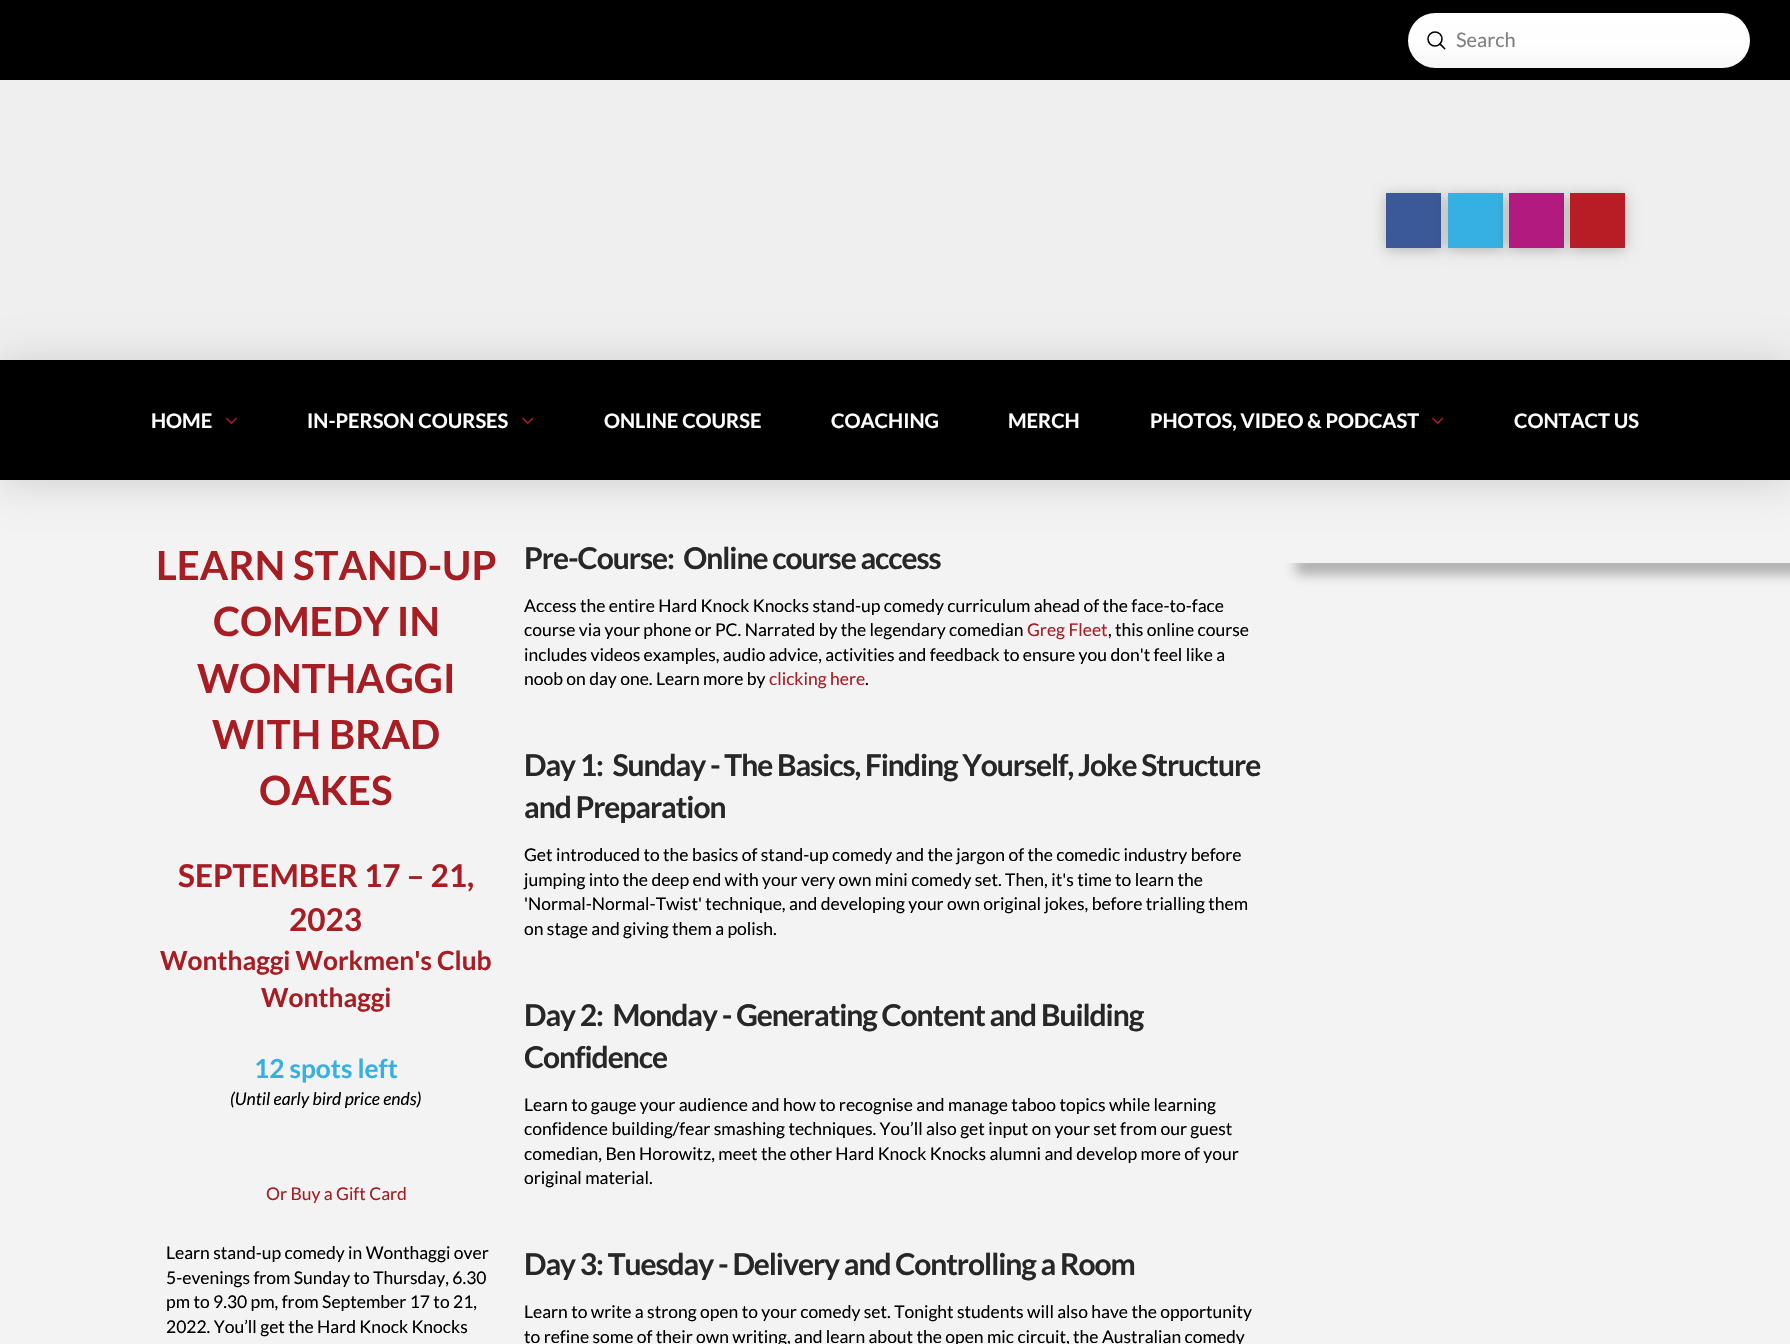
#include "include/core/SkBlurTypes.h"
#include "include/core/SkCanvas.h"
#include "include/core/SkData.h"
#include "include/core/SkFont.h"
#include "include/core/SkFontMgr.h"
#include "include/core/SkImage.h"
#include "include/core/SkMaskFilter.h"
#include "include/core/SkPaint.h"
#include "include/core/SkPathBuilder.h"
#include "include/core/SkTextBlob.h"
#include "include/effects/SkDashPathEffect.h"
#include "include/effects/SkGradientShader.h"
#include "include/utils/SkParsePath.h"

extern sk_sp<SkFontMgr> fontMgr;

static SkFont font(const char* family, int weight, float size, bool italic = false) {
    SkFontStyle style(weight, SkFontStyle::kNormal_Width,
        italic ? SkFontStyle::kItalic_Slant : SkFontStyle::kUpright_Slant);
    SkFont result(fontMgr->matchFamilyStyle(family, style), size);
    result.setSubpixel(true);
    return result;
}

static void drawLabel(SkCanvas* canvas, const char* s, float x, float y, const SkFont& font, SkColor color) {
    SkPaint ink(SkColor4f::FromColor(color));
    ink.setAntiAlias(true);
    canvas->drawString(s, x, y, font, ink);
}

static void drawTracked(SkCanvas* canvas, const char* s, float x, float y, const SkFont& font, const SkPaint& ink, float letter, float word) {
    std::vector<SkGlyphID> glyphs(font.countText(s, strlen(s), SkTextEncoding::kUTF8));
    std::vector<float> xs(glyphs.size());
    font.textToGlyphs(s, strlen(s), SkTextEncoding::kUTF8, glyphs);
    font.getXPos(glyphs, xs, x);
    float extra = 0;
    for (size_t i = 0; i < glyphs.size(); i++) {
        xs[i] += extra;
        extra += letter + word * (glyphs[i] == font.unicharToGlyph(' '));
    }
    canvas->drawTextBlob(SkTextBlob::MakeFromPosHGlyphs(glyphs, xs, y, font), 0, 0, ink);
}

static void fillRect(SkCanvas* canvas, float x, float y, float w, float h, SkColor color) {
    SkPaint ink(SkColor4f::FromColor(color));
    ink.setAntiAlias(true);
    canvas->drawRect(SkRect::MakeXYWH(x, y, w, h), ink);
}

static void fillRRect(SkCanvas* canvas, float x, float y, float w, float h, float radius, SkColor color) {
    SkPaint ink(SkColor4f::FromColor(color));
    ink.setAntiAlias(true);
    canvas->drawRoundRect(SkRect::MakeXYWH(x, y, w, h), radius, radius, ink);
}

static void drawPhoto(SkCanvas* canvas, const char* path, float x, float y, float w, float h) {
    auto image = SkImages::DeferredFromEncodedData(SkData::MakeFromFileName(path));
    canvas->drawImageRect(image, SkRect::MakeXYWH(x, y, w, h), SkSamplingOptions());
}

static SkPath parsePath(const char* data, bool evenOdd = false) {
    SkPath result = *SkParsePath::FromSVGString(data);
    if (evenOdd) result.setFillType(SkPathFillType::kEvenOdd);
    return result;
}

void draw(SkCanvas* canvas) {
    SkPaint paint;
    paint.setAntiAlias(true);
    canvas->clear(0xFFF3F3F3);
    fillRect(canvas, 0, 0, 1790, 80, 0xFF000000);
    fillRRect(canvas, 1408, 13, 342, 55, 27.5f, 0xFFFFFFFF);
    paint.setStroke(true);
    paint.setStrokeWidth(1.6f);
    paint.setColor(0xFF000000);
    canvas->drawCircle(1435, 39, 7, paint);
    paint.setStrokeCap(SkPaint::kSquare_Cap);
    canvas->drawPath(parsePath("M1444.5 48.5L1440 44"), paint);
    paint.setStroke(false);
    paint.setColor(0x26000000);
    paint.setMaskFilter(SkMaskFilter::MakeBlur(kNormal_SkBlurStyle, 20));
    canvas->drawRect(SkRect::MakeXYWH(0, 83, 1790, 280), paint);
    paint.setMaskFilter(nullptr);
    fillRect(canvas, 0, 80, 1790, 280, 0xFFEFEFEF);
    paint.setColor(0x40000000);
    paint.setMaskFilter(SkMaskFilter::MakeBlur(kNormal_SkBlurStyle, 6.5f));
    canvas->drawRect(SkRect::MakeXYWH(1386, 195, 55, 55), paint);
    paint.setMaskFilter(nullptr);
    fillRect(canvas, 1386, 193, 55, 55, 0xFF3B5998);
    paint.setMaskFilter(SkMaskFilter::MakeBlur(kNormal_SkBlurStyle, 6.5f));
    canvas->drawRect(SkRect::MakeXYWH(1448, 195, 55, 55), paint);
    paint.setMaskFilter(nullptr);
    fillRect(canvas, 1448, 193, 55, 55, 0xFF36B0E3);
    paint.setMaskFilter(SkMaskFilter::MakeBlur(kNormal_SkBlurStyle, 6.5f));
    canvas->drawRect(SkRect::MakeXYWH(1509, 195, 55, 55), paint);
    paint.setMaskFilter(nullptr);
    fillRect(canvas, 1509, 193, 55, 55, 0xFFB31A7F);
    paint.setMaskFilter(SkMaskFilter::MakeBlur(kNormal_SkBlurStyle, 6.5f));
    canvas->drawRect(SkRect::MakeXYWH(1570, 195, 55, 55), paint);
    paint.setMaskFilter(nullptr);
    fillRect(canvas, 1570, 193, 55, 55, 0xFFB61D24);
    SkFont font1 = font("Lato", 400, 20);
    drawLabel(canvas, "Search", 1456, 47, font1, 0xFF808080);
    paint.setColor(0x26000000);
    paint.setMaskFilter(SkMaskFilter::MakeBlur(kNormal_SkBlurStyle, 20));
    canvas->drawRect(SkRect::MakeXYWH(0, 363, 1790, 120), paint);
    paint.setMaskFilter(nullptr);
    fillRect(canvas, 0, 360, 1790, 120, 0xFF000000);
    SkFont font2 = font("Lato", 700, 20);
    drawLabel(canvas, "HOME", 151, 428, font2, 0xFFFFFFFF);
    drawPhoto(canvas, "assets/img1.png", 225, 417, 12, 8);
    drawLabel(canvas, "IN-PERSON COURSES", 307, 428, font2, 0xFFFFFFFF);
    drawPhoto(canvas, "assets/img2.png", 522, 417, 12, 8);
    drawLabel(canvas, "ONLINE COURSE", 604, 428, font2, 0xFFFFFFFF);
    drawLabel(canvas, "COACHING", 831, 428, font2, 0xFFFFFFFF);
    drawLabel(canvas, "MERCH", 1008, 428, font2, 0xFFFFFFFF);
    drawLabel(canvas, "PHOTOS, VIDEO & PODCAST", 1150, 428, font2, 0xFFFFFFFF);
    drawPhoto(canvas, "assets/img2.png", 1432, 417, 12, 8);
    drawLabel(canvas, "CONTACT US", 1514, 428, font2, 0xFFFFFFFF);
    SkFont font3 = font("Lato", 700, 40.25f);
    drawLabel(canvas, "LEARN STAND-UP", 156, 580, font3, 0xFFA71D24);
    drawLabel(canvas, "COMEDY IN", 213, 636, font3, 0xFFA71D24);
    drawLabel(canvas, "WONTHAGGI", 197, 693, font3, 0xFFA71D24);
    drawLabel(canvas, "WITH BRAD", 212, 749, font3, 0xFFA71D24);
    drawLabel(canvas, "OAKES", 259, 805, font3, 0xFFA71D24);
    SkFont font4 = font("Lato", 700, 31.5f);
    drawLabel(canvas, "SEPTEMBER 17 – 21,", 178, 887, font4, 0xFFA71D24);
    drawLabel(canvas, "2023", 289, 931, font4, 0xFFA71D24);
    SkFont font5 = font("Lato", 700, 26.25f);
    drawLabel(canvas, "Wonthaggi Workmen's Club", 160, 970, font5, 0xFFA71D24);
    drawLabel(canvas, "Wonthaggi", 261, 1007, font5, 0xFFA71D24);
    drawLabel(canvas, "12 spots left", 254, 1078, font5, 0xFF36B0E3);
    SkFont font6 = font("Lato", 400, 17.5f, true);
    drawLabel(canvas, "(Until early bird price ends)", 230, 1105, font6, 0xFF000000);
    SkFont font7 = font("Lato", 400, 17.5f);
    drawLabel(canvas, "Or Buy a Gift Card", 266, 1200, font7, 0xFFA71D24);
    drawLabel(canvas, "Learn stand-up comedy in Wonthaggi over", 166, 1259, font7, 0xFF000000);
    drawLabel(canvas, "5-evenings from Sunday to Thursday, 6.30", 166, 1284, font7, 0xFF000000);
    drawLabel(canvas, "pm to 9.30 pm, from September 17 to 21,", 166, 1308, font7, 0xFF000000);
    drawLabel(canvas, "2022. You’ll get the Hard Knock Knocks", 166, 1333, font7, 0xFF000000);
    SkFont font8 = font("Lato", 700, 30);
    paint.setColor(0xFF272727);
    drawTracked(canvas, "Pre-Course:  Online course access", 524, 569, font8, paint, -1.05f, 0);
    drawLabel(canvas, "Access the entire Hard Knock Knocks stand-up comedy curriculum ahead of the face-to-face", 524, 612, font7, 0xFF000000);
    drawLabel(canvas, "course via your phone or PC. Narrated by the legendary comedian", 524, 636, font7, 0xFF000000);
    drawLabel(canvas, "Greg Fleet", 1027, 636, font7, 0xFFA71D24);
    drawLabel(canvas, ", this online course", 1108, 636, font7, 0xFF000000);
    drawLabel(canvas, "includes videos examples, audio advice, activities and feedback to ensure you don't feel like a", 524, 661, font7, 0xFF000000);
    drawLabel(canvas, "noob on day one. Learn more by", 524, 685, font7, 0xFF000000);
    drawLabel(canvas, "clicking here", 769, 685, font7, 0xFFA71D24);
    drawLabel(canvas, ".", 865, 685, font7, 0xFF000000);
    drawTracked(canvas, "Day 1:  Sunday - The Basics, Finding Yourself, Joke Structure", 524, 776, font8, paint, -1.05f, 0);
    drawTracked(canvas, "and Preparation", 524, 818, font8, paint, -1.05f, 0);
    drawLabel(canvas, "Get introduced to the basics of stand-up comedy and the jargon of the comedic industry before", 524, 861, font7, 0xFF000000);
    drawLabel(canvas, "jumping into the deep end with your very own mini comedy set. Then, it's time to learn the", 524, 886, font7, 0xFF000000);
    drawLabel(canvas, "'Normal-Normal-Twist' technique, and developing your own original jokes, before trialling them", 524, 910, font7, 0xFF000000);
    drawLabel(canvas, "on stage and giving them a polish.", 524, 935, font7, 0xFF000000);
    drawTracked(canvas, "Day 2:  Monday - Generating Content and Building", 524, 1026, font8, paint, -1.05f, 0);
    drawTracked(canvas, "Confidence", 524, 1068, font8, paint, -1.05f, 0);
    drawLabel(canvas, "Learn to gauge your audience and how to recognise and manage taboo topics while learning", 524, 1111, font7, 0xFF000000);
    drawLabel(canvas, "confidence building/fear smashing techniques. You’ll also get input on your set from our guest", 524, 1135, font7, 0xFF000000);
    drawLabel(canvas, "comedian, Ben Horowitz, meet the other Hard Knock Knocks alumni and develop more of your", 524, 1160, font7, 0xFF000000);
    drawLabel(canvas, "original material.", 524, 1184, font7, 0xFF000000);
    drawTracked(canvas, "Day 3: Tuesday - Delivery and Controlling a Room", 524, 1275, font8, paint, -1.05f, 0);
    drawLabel(canvas, "Learn to write a strong open to your comedy set. Tonight students will also have the opportunity", 524, 1318, font7, 0xFF000000);
    drawLabel(canvas, "to refine some of their own writing, and learn about the open mic circuit, the Australian comedy", 524, 1343, font7, 0xFF000000);
    canvas->save();
    canvas->clipPath(parsePath("M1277 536H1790V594H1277ZM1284 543H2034V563H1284Z", true), true);
    paint.setColor(0x4F1F1F1F);
    paint.setMaskFilter(SkMaskFilter::MakeBlur(kNormal_SkBlurStyle, 6));
    canvas->drawRect(SkRect::MakeXYWH(1296, 555, 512, 20), paint);
    paint.setMaskFilter(nullptr);
    canvas->restore();
}
